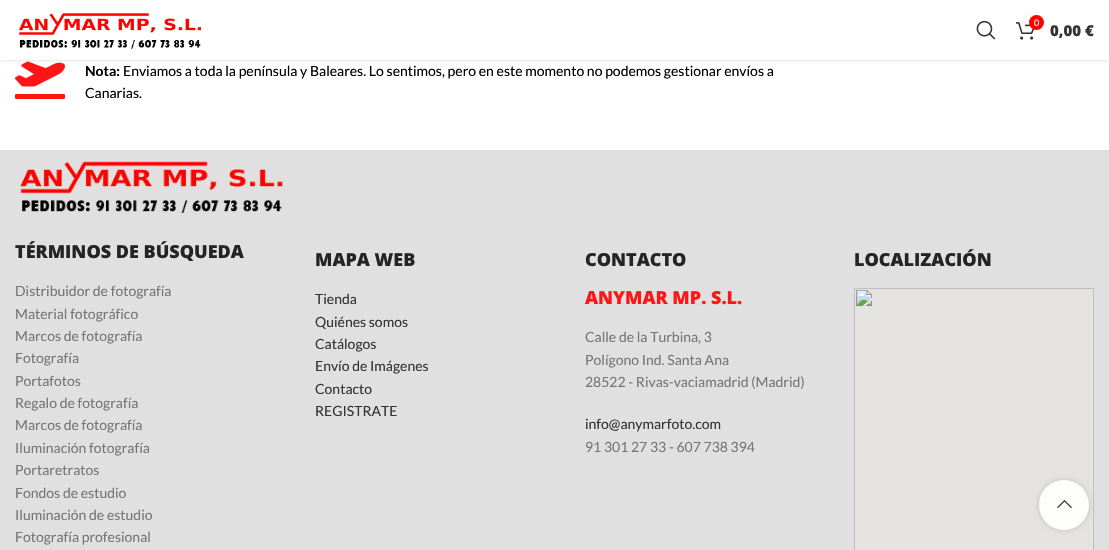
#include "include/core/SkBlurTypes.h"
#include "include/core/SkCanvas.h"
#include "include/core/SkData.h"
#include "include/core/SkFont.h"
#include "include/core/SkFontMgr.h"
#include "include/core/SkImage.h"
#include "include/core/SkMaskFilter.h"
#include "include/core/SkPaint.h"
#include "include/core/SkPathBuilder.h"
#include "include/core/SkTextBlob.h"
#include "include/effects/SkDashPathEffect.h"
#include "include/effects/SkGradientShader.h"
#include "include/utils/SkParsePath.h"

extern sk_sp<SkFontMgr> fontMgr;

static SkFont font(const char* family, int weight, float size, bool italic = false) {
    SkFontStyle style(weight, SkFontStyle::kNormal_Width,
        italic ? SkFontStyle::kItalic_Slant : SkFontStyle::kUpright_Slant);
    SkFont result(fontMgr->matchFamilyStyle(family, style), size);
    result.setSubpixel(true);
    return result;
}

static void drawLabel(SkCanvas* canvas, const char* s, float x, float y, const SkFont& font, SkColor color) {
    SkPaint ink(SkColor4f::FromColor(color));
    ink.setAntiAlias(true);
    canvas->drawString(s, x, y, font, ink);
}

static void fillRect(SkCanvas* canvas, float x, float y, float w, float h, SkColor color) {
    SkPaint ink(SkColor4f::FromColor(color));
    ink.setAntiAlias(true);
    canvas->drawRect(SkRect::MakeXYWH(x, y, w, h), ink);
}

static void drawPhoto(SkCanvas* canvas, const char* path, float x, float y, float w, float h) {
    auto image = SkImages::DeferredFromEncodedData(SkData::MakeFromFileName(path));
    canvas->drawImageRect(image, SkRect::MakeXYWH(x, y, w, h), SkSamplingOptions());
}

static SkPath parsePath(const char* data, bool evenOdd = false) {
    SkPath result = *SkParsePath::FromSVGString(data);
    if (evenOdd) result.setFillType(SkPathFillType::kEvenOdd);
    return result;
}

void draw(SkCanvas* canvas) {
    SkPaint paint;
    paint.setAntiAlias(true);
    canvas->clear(0xFFFFFFFF);
    drawPhoto(canvas, "assets/img4.png", 15, 61, 50, 38);
    paint.setColor(0x1A000000);
    paint.setMaskFilter(SkMaskFilter::MakeBlur(kNormal_SkBlurStyle, 1.5f));
    canvas->drawRect(SkRect::MakeXYWH(0, 1, 1109, 60), paint);
    paint.setMaskFilter(nullptr);
    fillRect(canvas, 0, 0, 1109, 60, 0xFFFFFFFF);
    drawPhoto(canvas, "assets/img1.png", 19, 13, 182, 36);
    drawPhoto(canvas, "assets/img2.png", 976, 20, 20, 20);
    drawPhoto(canvas, "assets/img3.png", 1016, 22, 19, 18);
    paint.setColor(0xFFFF0000);
    canvas->drawCircle(1036.5f, 22.5f, 7.5f, paint);
    SkFont font1 = font("Lato", 400, 9);
    drawLabel(canvas, "0", 1034, 26, font1, 0xFFFFFFFF);
    SkFont font2 = font("Open Sans", 800, 15);
    drawLabel(canvas, "0,00 €", 1050, 36, font2, 0xFF333333);
    SkFont font3 = font("Lato", 700, 14);
    drawLabel(canvas, "Nota:", 85, 76, font3, 0xFF000000);
    SkFont font4 = font("Lato", 400, 14);
    drawLabel(canvas, "Enviamos a toda la península y Baleares. Lo sentimos, pero en este momento no podemos gestionar envíos a", 123, 76, font4, 0xFF000000);
    drawLabel(canvas, "Canarias.", 85, 98, font4, 0xFF000000);
    fillRect(canvas, 0, 150, 1109, 400, 0xFFE0E0E0);
    drawPhoto(canvas, "assets/img5.png", 20, 161, 263, 52);
    SkFont font5 = font("Open Sans", 800, 18);
    drawLabel(canvas, "TÉRMINOS DE BÚSQUEDA", 15, 258, font5, 0xFF242424);
    drawLabel(canvas, "Distribuidor de fotografía", 15, 296, font4, 0xFF767676);
    drawLabel(canvas, "Material fotográfico", 15, 319, font4, 0xFF767676);
    drawLabel(canvas, "Marcos de fotografía", 15, 341, font4, 0xFF767676);
    drawLabel(canvas, "Fotografía", 15, 363, font4, 0xFF767676);
    drawLabel(canvas, "Portafotos", 15, 386, font4, 0xFF767676);
    drawLabel(canvas, "Regalo de fotografía", 15, 408, font4, 0xFF767676);
    drawLabel(canvas, "Marcos de fotografía", 15, 430, font4, 0xFF767676);
    drawLabel(canvas, "Iluminación fotografía", 15, 453, font4, 0xFF767676);
    drawLabel(canvas, "Portaretratos", 15, 475, font4, 0xFF767676);
    drawLabel(canvas, "Fondos de estudio", 15, 498, font4, 0xFF767676);
    drawLabel(canvas, "Iluminación de estudio", 15, 520, font4, 0xFF767676);
    drawLabel(canvas, "Fotografía profesional", 15, 542, font4, 0xFF767676);
    drawLabel(canvas, "MAPA WEB", 315, 266, font5, 0xFF242424);
    drawLabel(canvas, "Tienda", 315, 304, font4, 0xFF333333);
    drawLabel(canvas, "Quiénes somos", 315, 327, font4, 0xFF333333);
    drawLabel(canvas, "Catálogos", 315, 349, font4, 0xFF333333);
    drawLabel(canvas, "Envío de Imágenes", 315, 371, font4, 0xFF333333);
    drawLabel(canvas, "Contacto", 315, 394, font4, 0xFF333333);
    drawLabel(canvas, "REGISTRATE", 315, 416, font4, 0xFF333333);
    drawLabel(canvas, "CONTACTO", 585, 266, font5, 0xFF242424);
    drawLabel(canvas, "ANYMAR MP. S.L.", 585, 304, font5, 0xFFFF1515);
    drawLabel(canvas, "Calle de la Turbina, 3", 585, 342, font4, 0xFF767676);
    drawLabel(canvas, "Polígono Ind. Santa Ana", 585, 365, font4, 0xFF767676);
    drawLabel(canvas, "28522 - Rivas-vaciamadrid (Madrid)", 585, 387, font4, 0xFF767676);
    drawLabel(canvas, "info@anymarfoto.com", 585, 429, font4, 0xFF333333);
    drawLabel(canvas, "91 301 27 33 - 607 738 394", 585, 452, font4, 0xFF767676);
    drawLabel(canvas, "LOCALIZACIÓN", 854, 266, font5, 0xFF242424);
    drawPhoto(canvas, "assets/img6.png", 854, 288, 240, 262);
    canvas->save();
    canvas->clipPath(parsePath("M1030 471H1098V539H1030ZM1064 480C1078 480 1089 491 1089 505C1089 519 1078 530 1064 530C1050 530 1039 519 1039 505C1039 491 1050 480 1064 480Z", true), true);
    paint.setColor(0x2B000000);
    paint.setMaskFilter(SkMaskFilter::MakeBlur(kNormal_SkBlurStyle, 2.5f));
    canvas->drawRoundRect(SkRect::MakeXYWH(1039, 480, 50, 50), 25, 25, paint);
    paint.setMaskFilter(nullptr);
    canvas->restore();
    paint.setColor(0xE6FFFFFF);
    canvas->drawCircle(1064, 505, 25, paint);
    drawPhoto(canvas, "assets/img7.png", 1057, 499, 15, 9);
}
